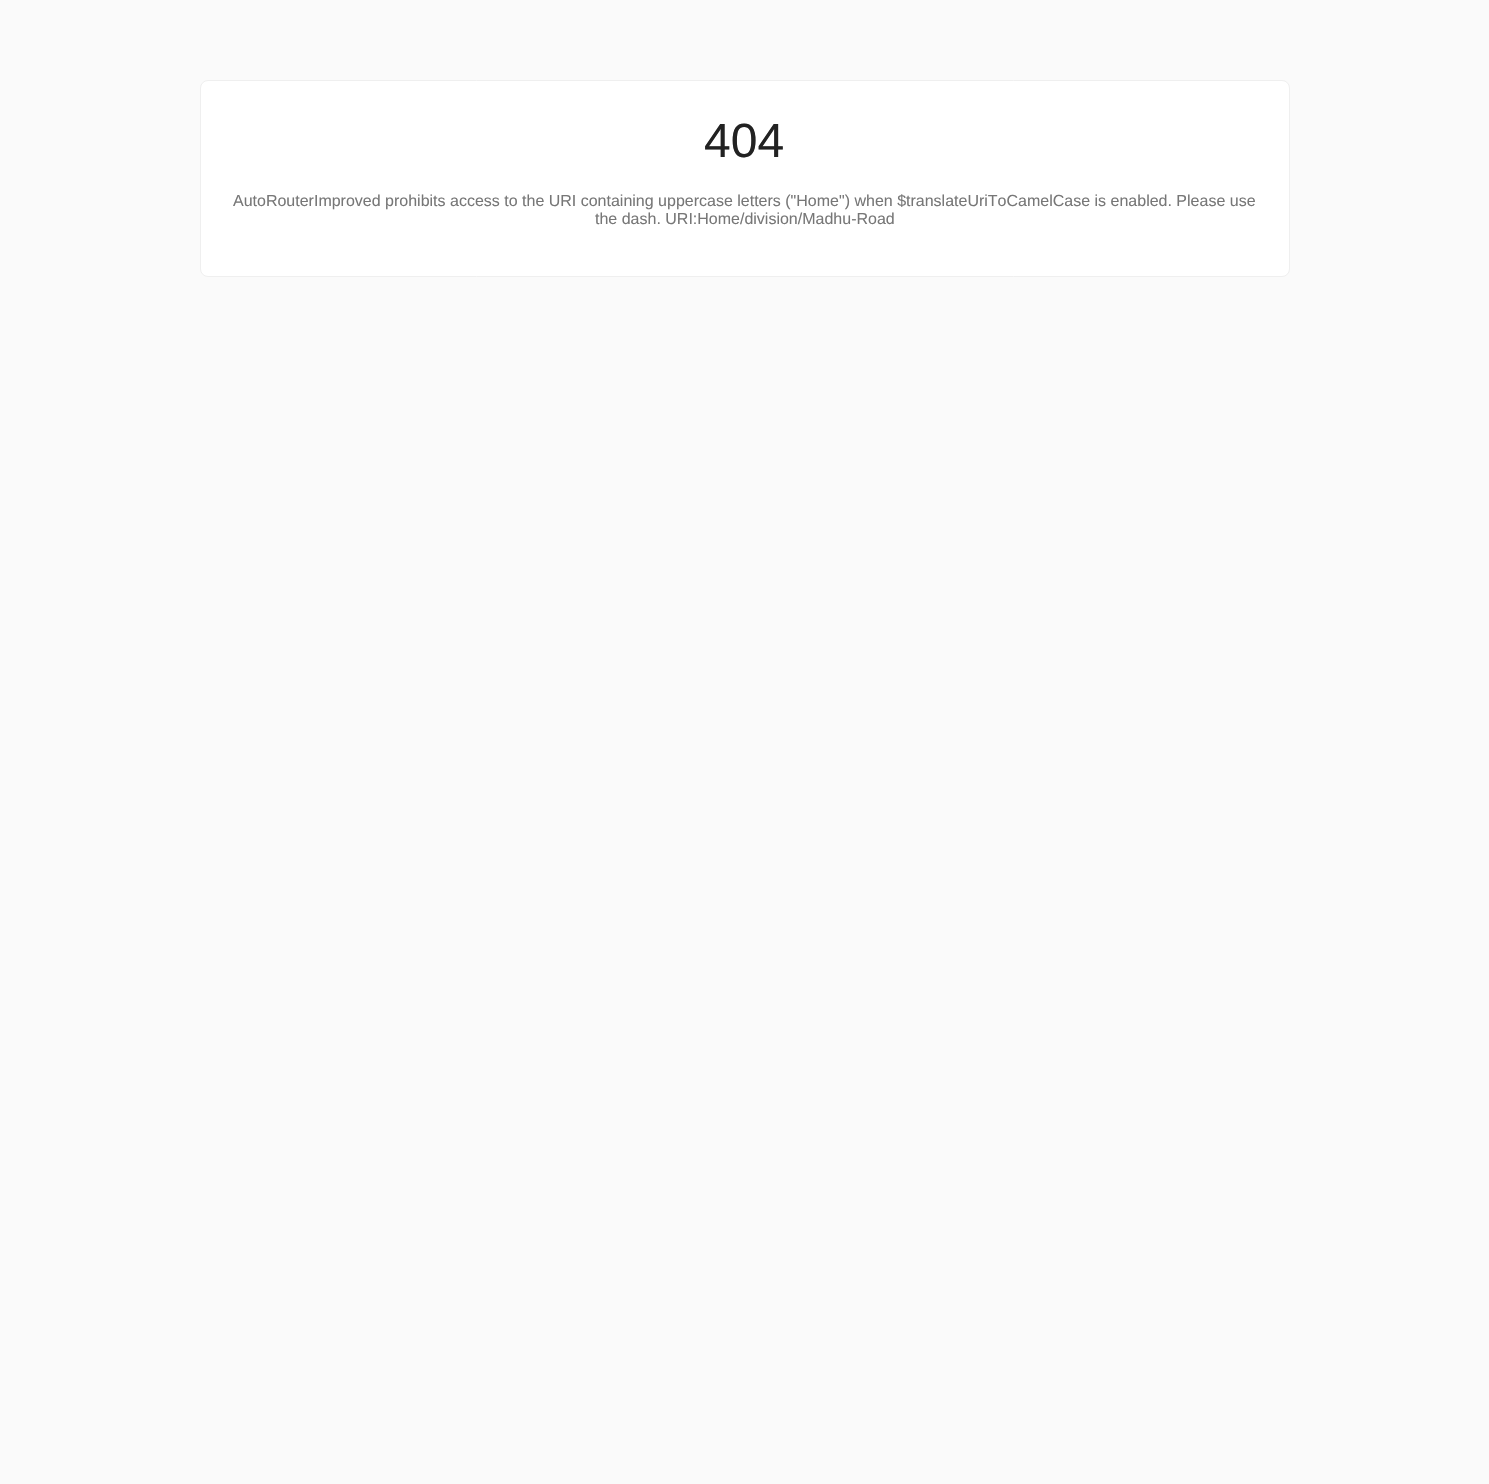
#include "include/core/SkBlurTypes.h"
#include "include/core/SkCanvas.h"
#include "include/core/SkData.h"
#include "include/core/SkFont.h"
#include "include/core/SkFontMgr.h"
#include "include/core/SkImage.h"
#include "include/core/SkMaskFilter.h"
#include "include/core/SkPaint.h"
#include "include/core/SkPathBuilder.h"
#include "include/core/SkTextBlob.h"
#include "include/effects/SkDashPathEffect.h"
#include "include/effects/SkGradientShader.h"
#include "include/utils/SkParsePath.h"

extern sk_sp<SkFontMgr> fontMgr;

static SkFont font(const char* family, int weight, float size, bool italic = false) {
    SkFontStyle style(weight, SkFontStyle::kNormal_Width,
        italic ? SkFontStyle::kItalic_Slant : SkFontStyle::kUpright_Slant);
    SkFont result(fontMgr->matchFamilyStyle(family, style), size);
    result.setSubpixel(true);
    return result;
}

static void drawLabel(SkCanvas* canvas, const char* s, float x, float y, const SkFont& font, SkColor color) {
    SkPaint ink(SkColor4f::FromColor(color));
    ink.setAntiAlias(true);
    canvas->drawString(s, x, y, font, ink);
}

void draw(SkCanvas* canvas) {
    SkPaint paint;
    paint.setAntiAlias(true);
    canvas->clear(0xFFFAFAFA);
    paint.setColor(0xFFFFFFFF);
    canvas->drawRoundRect(SkRect::MakeXYWH(200.5f, 80.5f, 1089, 196), 7.5f, 7.5f, paint);
    paint.setStroke(true);
    paint.setStrokeWidth(1);
    paint.setColor(0xFFEFEFEF);
    canvas->drawRoundRect(SkRect::MakeXYWH(200.5f, 80.5f, 1089, 196), 7.5f, 7.5f, paint);
    SkFont font1 = font("Liberation Sans", 400, 48);
    drawLabel(canvas, "404", 704, 157, font1, 0xFF222222);
    SkFont font2 = font("Liberation Sans", 400, 16);
    drawLabel(canvas, "AutoRouterImproved prohibits access to the URI containing uppercase letters (\"Home\") when $translateUriToCamelCase is enabled. Please use", 233, 206, font2, 0xFF777777);
    drawLabel(canvas, "the dash. URI:Home/division/Madhu-Road", 595, 224, font2, 0xFF777777);
}
